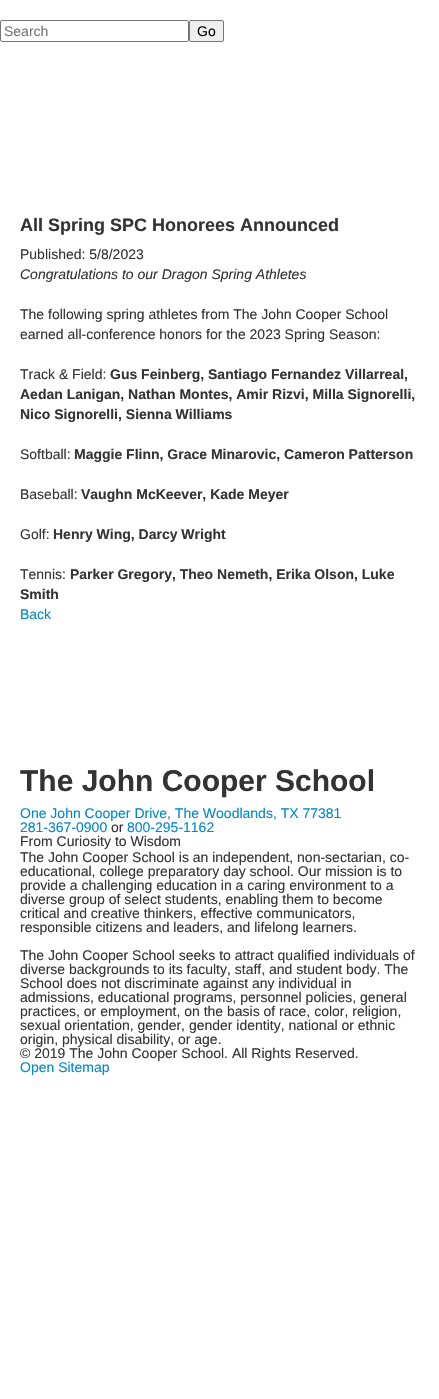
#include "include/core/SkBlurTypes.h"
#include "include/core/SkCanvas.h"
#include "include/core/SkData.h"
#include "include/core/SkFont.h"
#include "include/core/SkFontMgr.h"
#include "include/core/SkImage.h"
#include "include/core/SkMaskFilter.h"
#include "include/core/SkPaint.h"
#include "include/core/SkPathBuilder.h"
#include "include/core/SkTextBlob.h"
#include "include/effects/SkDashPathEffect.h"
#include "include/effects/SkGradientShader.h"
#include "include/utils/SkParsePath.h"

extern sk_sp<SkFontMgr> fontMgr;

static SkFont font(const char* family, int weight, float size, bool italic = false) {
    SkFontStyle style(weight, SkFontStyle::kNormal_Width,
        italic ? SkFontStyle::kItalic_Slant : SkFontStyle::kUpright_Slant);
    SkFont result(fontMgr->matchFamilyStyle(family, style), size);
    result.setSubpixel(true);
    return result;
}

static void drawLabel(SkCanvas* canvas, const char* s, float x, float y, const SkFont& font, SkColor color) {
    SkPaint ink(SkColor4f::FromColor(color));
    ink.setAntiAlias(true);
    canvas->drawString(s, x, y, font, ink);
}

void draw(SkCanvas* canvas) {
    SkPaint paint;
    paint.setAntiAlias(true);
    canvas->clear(0xFFFFFFFF);
    paint.setStroke(true);
    paint.setStrokeWidth(1);
    paint.setColor(0xFF767676);
    canvas->drawRoundRect(SkRect::MakeXYWH(0.5f, 20.5f, 188, 21), 1.5f, 1.5f, paint);
    SkFont font1 = font("Liberation Sans", 400, 14);
    drawLabel(canvas, "Search", 4, 36, font1, 0xFF757575);
    paint.setStroke(false);
    paint.setColor(0xFFEFEFEF);
    canvas->drawRoundRect(SkRect::MakeXYWH(189.5f, 20.5f, 34, 21), 1.5f, 1.5f, paint);
    paint.setStroke(true);
    paint.setColor(0xFF767676);
    canvas->drawRoundRect(SkRect::MakeXYWH(189.5f, 20.5f, 34, 21), 1.5f, 1.5f, paint);
    drawLabel(canvas, "Go", 197, 36, font1, 0xFF000000);
    SkFont font2 = font("Liberation Sans", 700, 18);
    drawLabel(canvas, "All Spring SPC Honorees Announced", 20, 231, font2, 0xFF333333);
    drawLabel(canvas, "Published: 5/8/2023", 20, 259, font1, 0xFF333333);
    SkFont font3 = font("Liberation Sans", 400, 14, true);
    drawLabel(canvas, "Congratulations to our Dragon Spring Athletes", 20, 279, font3, 0xFF333333);
    drawLabel(canvas, "The following spring athletes from The John Cooper School", 20, 319, font1, 0xFF333333);
    drawLabel(canvas, "earned all-conference honors for the 2023 Spring Season:", 20, 339, font1, 0xFF333333);
    drawLabel(canvas, "Track & Field:", 20, 379, font1, 0xFF333333);
    SkFont font4 = font("Liberation Sans", 700, 14);
    drawLabel(canvas, "Gus Feinberg, Santiago Fernandez Villarreal,", 110, 379, font4, 0xFF333333);
    drawLabel(canvas, "Aedan Lanigan, Nathan Montes, Amir Rizvi, Milla Signorelli,", 20, 399, font4, 0xFF333333);
    drawLabel(canvas, "Nico Signorelli, Sienna Williams", 20, 419, font4, 0xFF333333);
    drawLabel(canvas, "Softball:", 20, 459, font1, 0xFF333333);
    drawLabel(canvas, "Maggie Flinn, Grace Minarovic, Cameron Patterson", 74, 459, font4, 0xFF333333);
    drawLabel(canvas, "Baseball:", 20, 499, font1, 0xFF333333);
    drawLabel(canvas, "Vaughn McKeever, Kade Meyer", 81, 499, font4, 0xFF333333);
    drawLabel(canvas, "Golf:", 20, 539, font1, 0xFF333333);
    drawLabel(canvas, "Henry Wing, Darcy Wright", 53, 539, font4, 0xFF333333);
    drawLabel(canvas, "Tennis:", 20, 579, font1, 0xFF333333);
    drawLabel(canvas, "Parker Gregory, Theo Nemeth, Erika Olson, Luke", 70, 579, font4, 0xFF333333);
    drawLabel(canvas, "Smith", 20, 599, font4, 0xFF333333);
    drawLabel(canvas, "Back", 20, 619, font1, 0xFF0088CC);
    SkFont font5 = font("Liberation Sans", 700, 30);
    drawLabel(canvas, "The John Cooper School", 20, 791, font5, 0xFF333333);
    drawLabel(canvas, "One John Cooper Drive, The Woodlands, TX 77381", 20, 818, font1, 0xFF0088CC);
    drawLabel(canvas, "281-367-0900", 20, 832, font1, 0xFF0088CC);
    drawLabel(canvas, "or", 111, 832, font1, 0xFF333333);
    drawLabel(canvas, "800-295-1162", 127, 832, font1, 0xFF0088CC);
    drawLabel(canvas, "From Curiosity to Wisdom", 20, 846, font1, 0xFF333333);
    drawLabel(canvas, "The John Cooper School is an independent, non-sectarian, co-", 20, 862, font1, 0xFF333333);
    drawLabel(canvas, "educational, college preparatory day school. Our mission is to", 20, 876, font1, 0xFF333333);
    drawLabel(canvas, "provide a challenging education in a caring environment to a", 20, 890, font1, 0xFF333333);
    drawLabel(canvas, "diverse group of select students, enabling them to become", 20, 904, font1, 0xFF333333);
    drawLabel(canvas, "critical and creative thinkers, effective communicators,", 20, 918, font1, 0xFF333333);
    drawLabel(canvas, "responsible citizens and leaders, and lifelong learners.", 20, 932, font1, 0xFF333333);
    drawLabel(canvas, "The John Cooper School seeks to attract qualified individuals of", 20, 960, font1, 0xFF333333);
    drawLabel(canvas, "diverse backgrounds to its faculty, staff, and student body. The", 20, 974, font1, 0xFF333333);
    drawLabel(canvas, "School does not discriminate against any individual in", 20, 988, font1, 0xFF333333);
    drawLabel(canvas, "admissions, educational programs, personnel policies, general", 20, 1002, font1, 0xFF333333);
    drawLabel(canvas, "practices, or employment, on the basis of race, color, religion,", 20, 1016, font1, 0xFF333333);
    drawLabel(canvas, "sexual orientation, gender, gender identity, national or ethnic", 20, 1030, font1, 0xFF333333);
    drawLabel(canvas, "origin, physical disability, or age.", 20, 1044, font1, 0xFF333333);
    drawLabel(canvas, "© 2019 The John Cooper School. All Rights Reserved.", 20, 1058, font1, 0xFF333333);
    drawLabel(canvas, "Open Sitemap", 20, 1072, font1, 0xFF0088CC);
}
